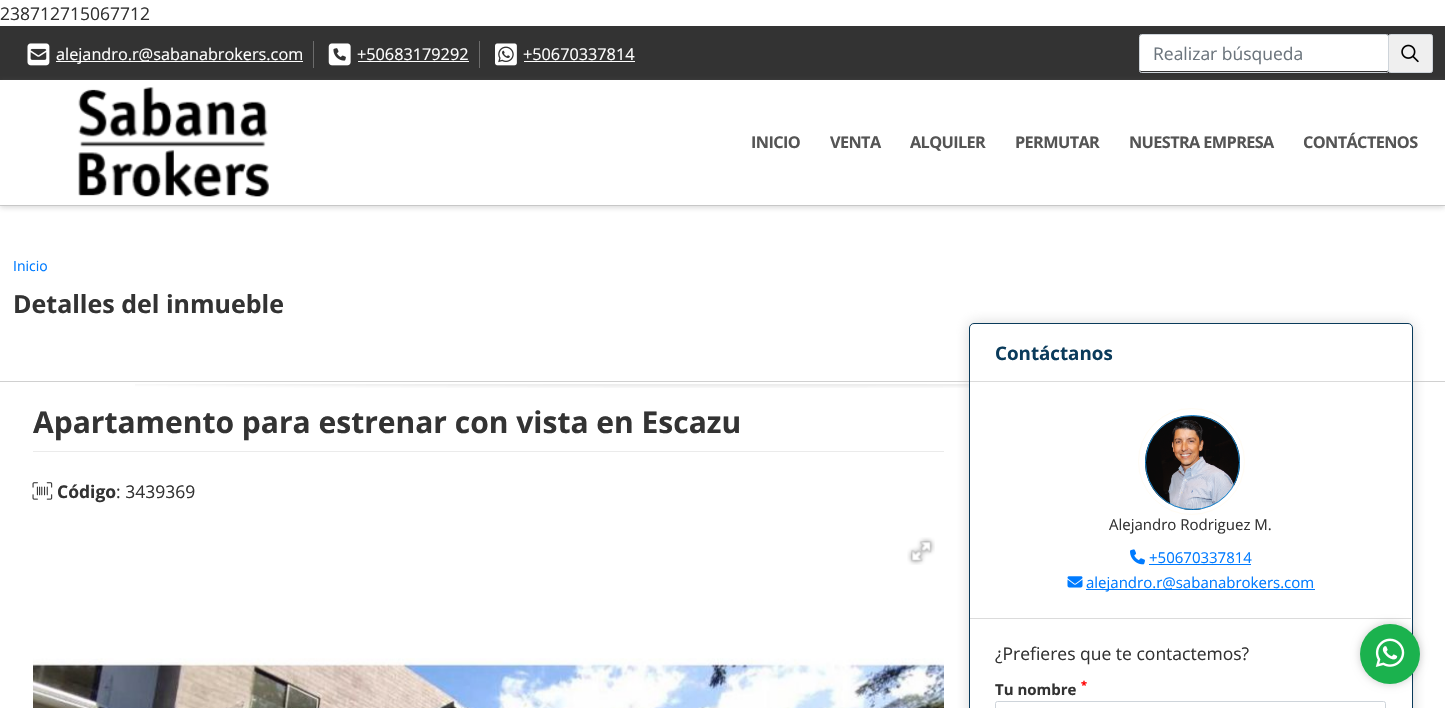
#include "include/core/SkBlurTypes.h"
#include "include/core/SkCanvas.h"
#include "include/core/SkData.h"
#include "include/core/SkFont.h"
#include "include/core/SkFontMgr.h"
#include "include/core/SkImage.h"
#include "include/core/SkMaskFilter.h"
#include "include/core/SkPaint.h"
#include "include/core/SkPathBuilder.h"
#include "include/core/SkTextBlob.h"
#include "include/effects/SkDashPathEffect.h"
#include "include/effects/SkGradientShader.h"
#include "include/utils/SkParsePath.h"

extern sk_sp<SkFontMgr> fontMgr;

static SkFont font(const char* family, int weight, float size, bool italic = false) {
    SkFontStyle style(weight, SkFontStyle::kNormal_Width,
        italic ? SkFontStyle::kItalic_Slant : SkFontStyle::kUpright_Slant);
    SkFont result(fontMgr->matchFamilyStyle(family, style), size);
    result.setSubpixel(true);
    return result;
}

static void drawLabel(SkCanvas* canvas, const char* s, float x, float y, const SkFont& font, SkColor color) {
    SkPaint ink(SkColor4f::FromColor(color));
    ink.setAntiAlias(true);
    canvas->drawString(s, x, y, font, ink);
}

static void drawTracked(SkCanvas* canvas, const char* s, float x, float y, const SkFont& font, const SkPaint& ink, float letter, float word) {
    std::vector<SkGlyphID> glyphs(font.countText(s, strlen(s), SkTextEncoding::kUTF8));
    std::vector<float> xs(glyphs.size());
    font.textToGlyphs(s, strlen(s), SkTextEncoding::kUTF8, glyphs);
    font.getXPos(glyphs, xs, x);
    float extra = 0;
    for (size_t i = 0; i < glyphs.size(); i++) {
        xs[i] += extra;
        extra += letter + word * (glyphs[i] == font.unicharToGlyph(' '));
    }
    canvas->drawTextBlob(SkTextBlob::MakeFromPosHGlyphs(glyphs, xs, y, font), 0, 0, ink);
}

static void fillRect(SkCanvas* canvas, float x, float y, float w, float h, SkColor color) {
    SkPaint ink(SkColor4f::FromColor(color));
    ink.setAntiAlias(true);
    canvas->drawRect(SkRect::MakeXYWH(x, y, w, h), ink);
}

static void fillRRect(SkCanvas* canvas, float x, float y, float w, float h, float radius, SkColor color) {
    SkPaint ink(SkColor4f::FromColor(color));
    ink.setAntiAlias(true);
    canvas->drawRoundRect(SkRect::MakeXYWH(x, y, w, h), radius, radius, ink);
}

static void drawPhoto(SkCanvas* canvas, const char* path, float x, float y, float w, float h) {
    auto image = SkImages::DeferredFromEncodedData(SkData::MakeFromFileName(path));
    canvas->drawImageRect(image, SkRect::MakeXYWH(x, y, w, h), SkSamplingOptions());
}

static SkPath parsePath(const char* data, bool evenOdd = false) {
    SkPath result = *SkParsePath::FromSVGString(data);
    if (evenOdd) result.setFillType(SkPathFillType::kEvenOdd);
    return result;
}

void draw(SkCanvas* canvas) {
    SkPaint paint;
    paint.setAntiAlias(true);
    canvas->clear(0xFFFFFFFF);
    SkFont font1 = font("Open Sans", 400, 17.5f);
    drawLabel(canvas, "238712715067712", 0, 20, font1, 0xFF333333);
    fillRect(canvas, 0, 26, 1445, 54, 0xFF333333);
    fillRect(canvas, 313, 41, 1, 27, 0xFF6C6C6C);
    drawPhoto(canvas, "assets/img1.png", 27, 43, 23, 23);
    fillRect(canvas, 56, 61, 247, 1, 0xFFFFFFFF);
    SkFont font2 = font("Open Sans", 400, 16.25f);
    drawLabel(canvas, "alejandro.r@sabanabrokers.com", 56, 60, font2, 0xFFFFFFFF);
    fillRect(canvas, 479, 41, 1, 27, 0xFF6C6C6C);
    drawPhoto(canvas, "assets/img2.png", 328, 43, 23, 23);
    drawLabel(canvas, "+50683179292", 357, 60, font2, 0xFFFFFFFF);
    fillRect(canvas, 358, 61, 111, 1, 0xFFFFFFFF);
    drawPhoto(canvas, "assets/img3.png", 495, 43, 22, 23);
    drawLabel(canvas, "+50670337814", 523, 60, font2, 0xFFFFFFFF);
    fillRect(canvas, 524, 61, 111, 1, 0xFFFFFFFF);
    fillRRect(canvas, 1140, 35, 248, 36, 1, 0xFFFFFFFF);
    paint.setStroke(true);
    paint.setStrokeWidth(1);
    paint.setColor(0xFFCED4DA);
    canvas->drawRoundRect(SkRect::MakeXYWH(1139.5f, 34.5f, 249, 38), 2, 2, paint);
    drawLabel(canvas, "Realizar búsqueda", 1153, 60, font1, 0xFF6C757D);
    paint.setStroke(false);
    paint.setColor(0xFFEFEFEF);
    canvas->drawRoundRect(SkRect::MakeXYWH(1388.5f, 34.5f, 44, 38), 2, 2, paint);
    paint.setStroke(true);
    paint.setColor(0xFFCED4DA);
    canvas->drawRoundRect(SkRect::MakeXYWH(1388.5f, 34.5f, 44, 38), 2, 2, paint);
    drawPhoto(canvas, "assets/img4.png", 1401, 44, 18, 19);
    fillRect(canvas, 0, 205, 1445, 1, 0xFFD0D0D0);
    canvas->save();
    canvas->clipPath(parsePath("M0 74H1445V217H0ZM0 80H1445V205H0Z", true), true);
    paint.setStroke(false);
    paint.setColor(0x80BABABA);
    paint.setMaskFilter(SkMaskFilter::MakeBlur(kNormal_SkBlurStyle, 2.5f));
    canvas->drawRect(SkRect::MakeXYWH(0, 83, 1445, 125), paint);
    paint.setMaskFilter(nullptr);
    canvas->restore();
    drawPhoto(canvas, "assets/img5.png", 78, 87, 191, 110);
    SkFont font3 = font("Open Sans", 700, 16.25f);
    paint.setColor(0xFF555555);
    drawTracked(canvas, "INICIO", 751, 148, font3, paint, -0.6f, 0);
    drawTracked(canvas, "VENTA", 830, 148, font3, paint, -0.6f, 0);
    drawTracked(canvas, "ALQUILER", 910, 148, font3, paint, -0.6f, 0);
    drawTracked(canvas, "PERMUTAR", 1015, 148, font3, paint, -0.6f, 0);
    drawTracked(canvas, "NUESTRA EMPRESA", 1129, 148, font3, paint, -0.6f, 0);
    drawTracked(canvas, "CONTÁCTENOS", 1303, 148, font3, paint, -0.6f, 0);
    fillRect(canvas, 0, 381, 1445, 1, 0xFFD0D0D0);
    SkFont font4 = font("Open Sans", 400, 14);
    drawLabel(canvas, "Inicio", 13, 271, font4, 0xFF007BFF);
    SkFont font5 = font("Open Sans", 700, 25);
    drawLabel(canvas, "Detalles del inmueble", 13, 313, font5, 0xFF333333);
    fillRect(canvas, 33, 451, 911, 1, 0xFFEBEBEB);
    SkFont font6 = font("Open Sans", 700, 30);
    drawLabel(canvas, "Apartamento para estrenar con vista en Escazu", 33, 433, font6, 0xFF333333);
    drawPhoto(canvas, "assets/img6.png", 32, 482, 21, 18);
    SkFont font7 = font("Open Sans", 700, 17.5f);
    drawLabel(canvas, "Código", 57, 498, font7, 0xFF333333);
    drawLabel(canvas, ": 3439369", 116, 498, font1, 0xFF333333);
    drawPhoto(canvas, "assets/img7.png", 907, 537, 28, 28);
    drawPhoto(canvas, "assets/img8.png", 33, 658, 911, 50);
    drawPhoto(canvas, "assets/img12.png", 135, 384, 834, 4);
    paint.setColor(0x80B0B0B0);
    paint.setMaskFilter(SkMaskFilter::MakeBlur(kNormal_SkBlurStyle, 7));
    canvas->drawRoundRect(SkRect::MakeXYWH(969, 323, 444, 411), 5, 5, paint);
    paint.setMaskFilter(nullptr);
    paint.setColor(0xFFFFFFFF);
    canvas->drawRoundRect(SkRect::MakeXYWH(969.5f, 323.5f, 443, 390), 4.5f, 4.5f, paint);
    paint.setStroke(true);
    paint.setColor(0xFF0A3B5B);
    canvas->drawRoundRect(SkRect::MakeXYWH(969.5f, 323.5f, 443, 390), 4.5f, 4.5f, paint);
    fillRect(canvas, 970, 381, 441, 1, 0xFFDBDBDB);
    SkFont font8 = font("Open Sans", 700, 18.75f);
    drawLabel(canvas, "Contáctanos", 995, 360, font8, 0xFF0A3B5B);
    paint.setColor(0xFFFFFCF4);
    canvas->drawCircle(1191.5f, 461.5f, 53, paint);
    drawPhoto(canvas, "assets/img9.png", 1145, 415, 95, 95);
    paint.setColor(0xFF1785CE);
    canvas->drawCircle(1192.5f, 462.5f, 47, paint);
    SkFont font9 = font("Open Sans", 400, 15);
    drawLabel(canvas, "Alejandro Rodriguez M.", 1109, 530, font9, 0xFF333333);
    drawPhoto(canvas, "assets/img10.png", 1130, 549, 15, 16);
    drawLabel(canvas, "+50670337814", 1149, 563, font9, 0xFF007BFF);
    fillRect(canvas, 1149, 564, 102, 1, 0xFF007BFF);
    drawPhoto(canvas, "assets/img11.png", 1067, 576, 16, 12);
    fillRect(canvas, 1086, 589, 229, 1, 0xFF007BFF);
    drawLabel(canvas, "alejandro.r@sabanabrokers.com", 1086, 588, font9, 0xFF007BFF);
    fillRect(canvas, 970, 618, 441, 1, 0xFFDBDBDB);
    drawLabel(canvas, "¿Prefieres que te contactemos?", 995, 660, font1, 0xFF333333);
    SkFont font10 = font("Open Sans", 700, 15);
    drawLabel(canvas, "Tu nombre", 995, 695, font10, 0xFF333333);
    SkFont font11 = font("Open Sans", 700, 11);
    drawLabel(canvas, "*", 1081, 689, font11, 0xFFFF0000);
    paint.setColor(0xFFCED4DA);
    canvas->drawRoundRect(SkRect::MakeXYWH(995.5f, 701.5f, 390, 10), 2, 2, paint);
    paint.setStroke(false);
    paint.setColor(0x33000000);
    paint.setMaskFilter(SkMaskFilter::MakeBlur(kNormal_SkBlurStyle, 4));
    canvas->drawRoundRect(SkRect::MakeXYWH(1360, 624, 60, 60), 30, 30, paint);
    paint.setMaskFilter(nullptr);
    paint.setColor(0xFF1BB24E);
    canvas->drawCircle(1390, 654, 30, paint);
    drawPhoto(canvas, "assets/img13.png", 1375, 638, 30, 29);
}
